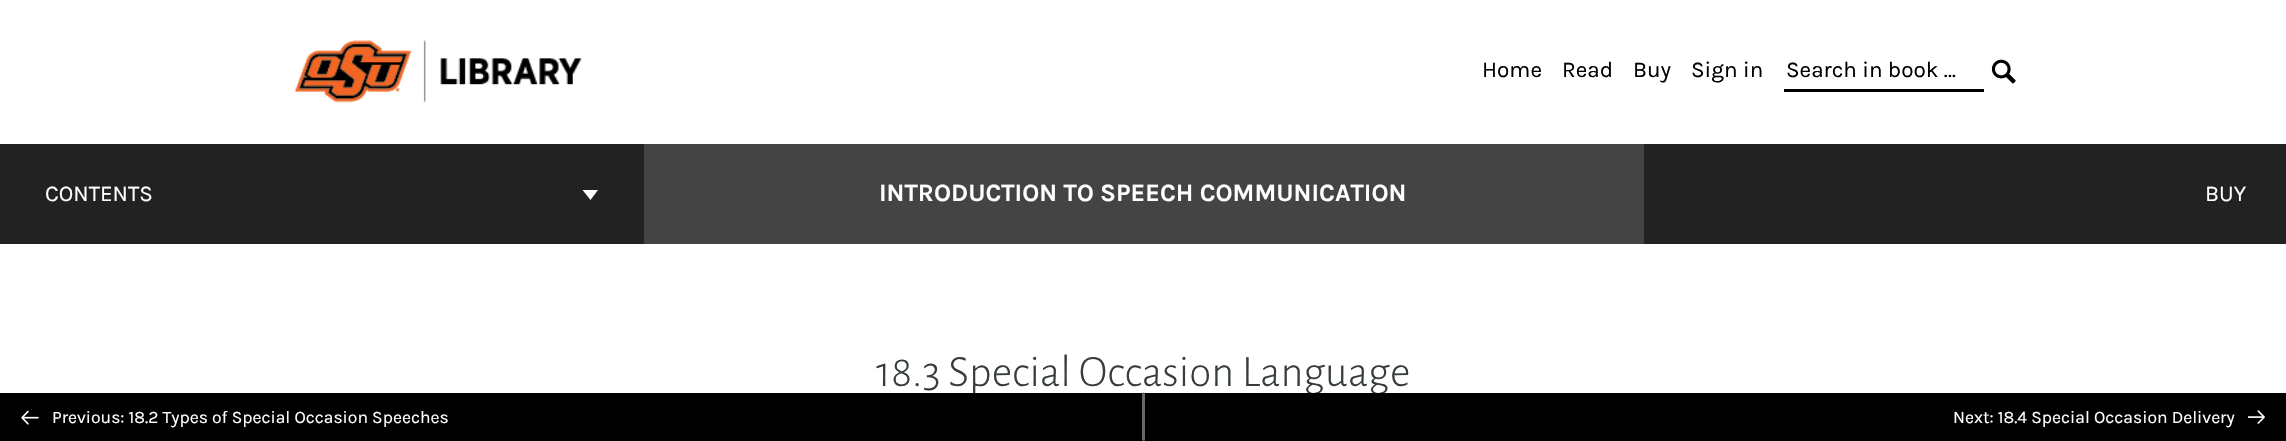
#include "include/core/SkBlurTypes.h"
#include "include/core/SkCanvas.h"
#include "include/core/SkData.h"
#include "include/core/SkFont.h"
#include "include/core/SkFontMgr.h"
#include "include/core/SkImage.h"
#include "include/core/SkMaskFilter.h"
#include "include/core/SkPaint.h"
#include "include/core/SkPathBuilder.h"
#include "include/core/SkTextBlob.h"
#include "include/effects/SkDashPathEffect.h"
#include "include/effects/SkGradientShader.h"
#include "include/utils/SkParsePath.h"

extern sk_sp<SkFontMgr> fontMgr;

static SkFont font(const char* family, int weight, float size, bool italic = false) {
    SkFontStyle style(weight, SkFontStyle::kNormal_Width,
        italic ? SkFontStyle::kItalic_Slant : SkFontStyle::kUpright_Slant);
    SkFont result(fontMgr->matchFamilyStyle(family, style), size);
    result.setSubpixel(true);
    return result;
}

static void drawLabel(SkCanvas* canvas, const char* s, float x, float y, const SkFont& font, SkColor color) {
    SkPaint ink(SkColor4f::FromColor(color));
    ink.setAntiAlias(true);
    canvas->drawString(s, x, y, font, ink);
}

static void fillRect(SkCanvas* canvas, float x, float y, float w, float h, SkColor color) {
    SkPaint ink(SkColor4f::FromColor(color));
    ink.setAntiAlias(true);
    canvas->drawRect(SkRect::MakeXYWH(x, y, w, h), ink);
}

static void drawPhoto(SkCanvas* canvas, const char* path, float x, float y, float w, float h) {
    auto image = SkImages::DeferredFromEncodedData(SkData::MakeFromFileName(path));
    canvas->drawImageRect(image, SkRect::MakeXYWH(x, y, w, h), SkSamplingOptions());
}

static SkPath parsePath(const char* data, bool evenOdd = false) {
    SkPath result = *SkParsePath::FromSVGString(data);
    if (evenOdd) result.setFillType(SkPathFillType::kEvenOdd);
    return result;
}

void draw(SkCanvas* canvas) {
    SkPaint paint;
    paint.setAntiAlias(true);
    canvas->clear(0xFFFFFFFF);
    drawPhoto(canvas, "assets/img1.png", 294, 40, 288, 63);
    SkFont font1 = font("Karla", 400, 22.5f);
    drawLabel(canvas, "Home", 1482, 77, font1, 0xFF000000);
    drawLabel(canvas, "Read", 1562, 77, font1, 0xFF000000);
    drawLabel(canvas, "Buy", 1633, 77, font1, 0xFF000000);
    drawLabel(canvas, "Sign in", 1691, 77, font1, 0xFF000000);
    fillRect(canvas, 1784, 89, 200, 3, 0xFF000000);
    drawLabel(canvas, "Search in book …", 1786, 77, font1, 0xFF000000);
    drawPhoto(canvas, "assets/img2.png", 1991, 59, 25, 25);
    fillRect(canvas, 0, 144, 2286, 100, 0xFF222222);
    drawLabel(canvas, "CONTENTS", 45, 201, font1, 0xFFFFFFFF);
    paint.setColor(0xFFFFFFFF);
    canvas->drawPath(parsePath("M590.5 200L582.5 190H598Z", true), paint);
    fillRect(canvas, 644, 144, 1000, 100, 0xFF444444);
    SkFont font2 = font("Karla", 700, 25);
    drawLabel(canvas, "INTRODUCTION TO SPEECH COMMUNICATION", 879, 201, font2, 0xFFFFFFFF);
    drawLabel(canvas, "BUY", 2205, 201, font1, 0xFFFFFFFF);
    SkFont font3 = font("Alegreya Sans", 300, 45);
    drawLabel(canvas, "18.3 Special Occasion Language", 876, 386, font3, 0xFF373D3F);
    fillRect(canvas, 0, 393, 2286, 48, 0xFF000000);
    paint.setColor(0xFF686868);
    canvas->drawPath(parsePath("M1144 392V441L1142 440V394Z"), paint);
    drawPhoto(canvas, "assets/img3.png", 21, 410, 18, 15);
    SkFont font4 = font("Karla", 400, 17.5f);
    drawLabel(canvas, "Previous: 18.2 Types of Special Occasion Speeches", 52, 423, font4, 0xFFFFFFFF);
    canvas->drawPath(parsePath("M1144 441V392L1145 394V440Z"), paint);
    drawLabel(canvas, "Next: 18.4 Special Occasion Delivery", 1953, 423, font4, 0xFFFFFFFF);
    drawPhoto(canvas, "assets/img4.png", 2248, 410, 17, 14);
}
